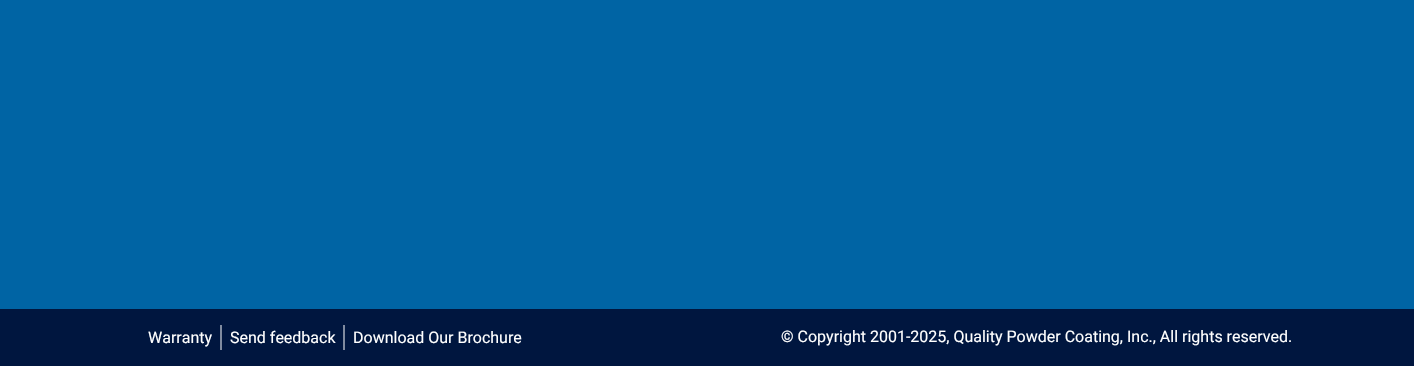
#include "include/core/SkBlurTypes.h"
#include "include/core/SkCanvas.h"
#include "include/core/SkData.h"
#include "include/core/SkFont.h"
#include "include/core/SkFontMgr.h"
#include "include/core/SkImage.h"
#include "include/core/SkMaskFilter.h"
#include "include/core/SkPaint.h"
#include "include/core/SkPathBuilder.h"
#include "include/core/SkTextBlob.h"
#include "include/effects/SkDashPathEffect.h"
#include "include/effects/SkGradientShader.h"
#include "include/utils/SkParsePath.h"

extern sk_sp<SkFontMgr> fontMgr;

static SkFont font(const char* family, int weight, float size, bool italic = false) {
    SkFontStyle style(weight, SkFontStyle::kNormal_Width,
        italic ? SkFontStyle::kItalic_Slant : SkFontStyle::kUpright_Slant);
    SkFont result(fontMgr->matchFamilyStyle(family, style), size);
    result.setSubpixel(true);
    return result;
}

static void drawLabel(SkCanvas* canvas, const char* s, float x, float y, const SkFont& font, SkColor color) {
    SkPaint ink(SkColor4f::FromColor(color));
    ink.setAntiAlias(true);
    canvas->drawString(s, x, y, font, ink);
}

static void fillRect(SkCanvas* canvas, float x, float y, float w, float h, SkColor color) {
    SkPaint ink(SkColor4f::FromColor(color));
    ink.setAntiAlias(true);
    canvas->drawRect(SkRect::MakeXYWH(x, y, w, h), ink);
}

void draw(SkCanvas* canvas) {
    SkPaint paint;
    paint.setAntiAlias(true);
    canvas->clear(0xFF0064A4);
    fillRect(canvas, 0, 309, 1414, 57, 0xFF00163F);
    fillRect(canvas, 220, 325, 2, 25, 0xFF808B9F);
    SkFont font1 = font("Roboto", 400, 16);
    drawLabel(canvas, "Warranty", 148, 343, font1, 0xFFFFFFFF);
    fillRect(canvas, 343, 325, 2, 25, 0xFF808B9F);
    drawLabel(canvas, "Send feedback", 230, 343, font1, 0xFFFFFFFF);
    drawLabel(canvas, "Download Our Brochure", 353, 343, font1, 0xFFFFFFFF);
    drawLabel(canvas, "© Copyright 2001-2025, Quality Powder Coating, Inc., All rights reserved.", 781, 342, font1, 0xFFFFFFFF);
}
